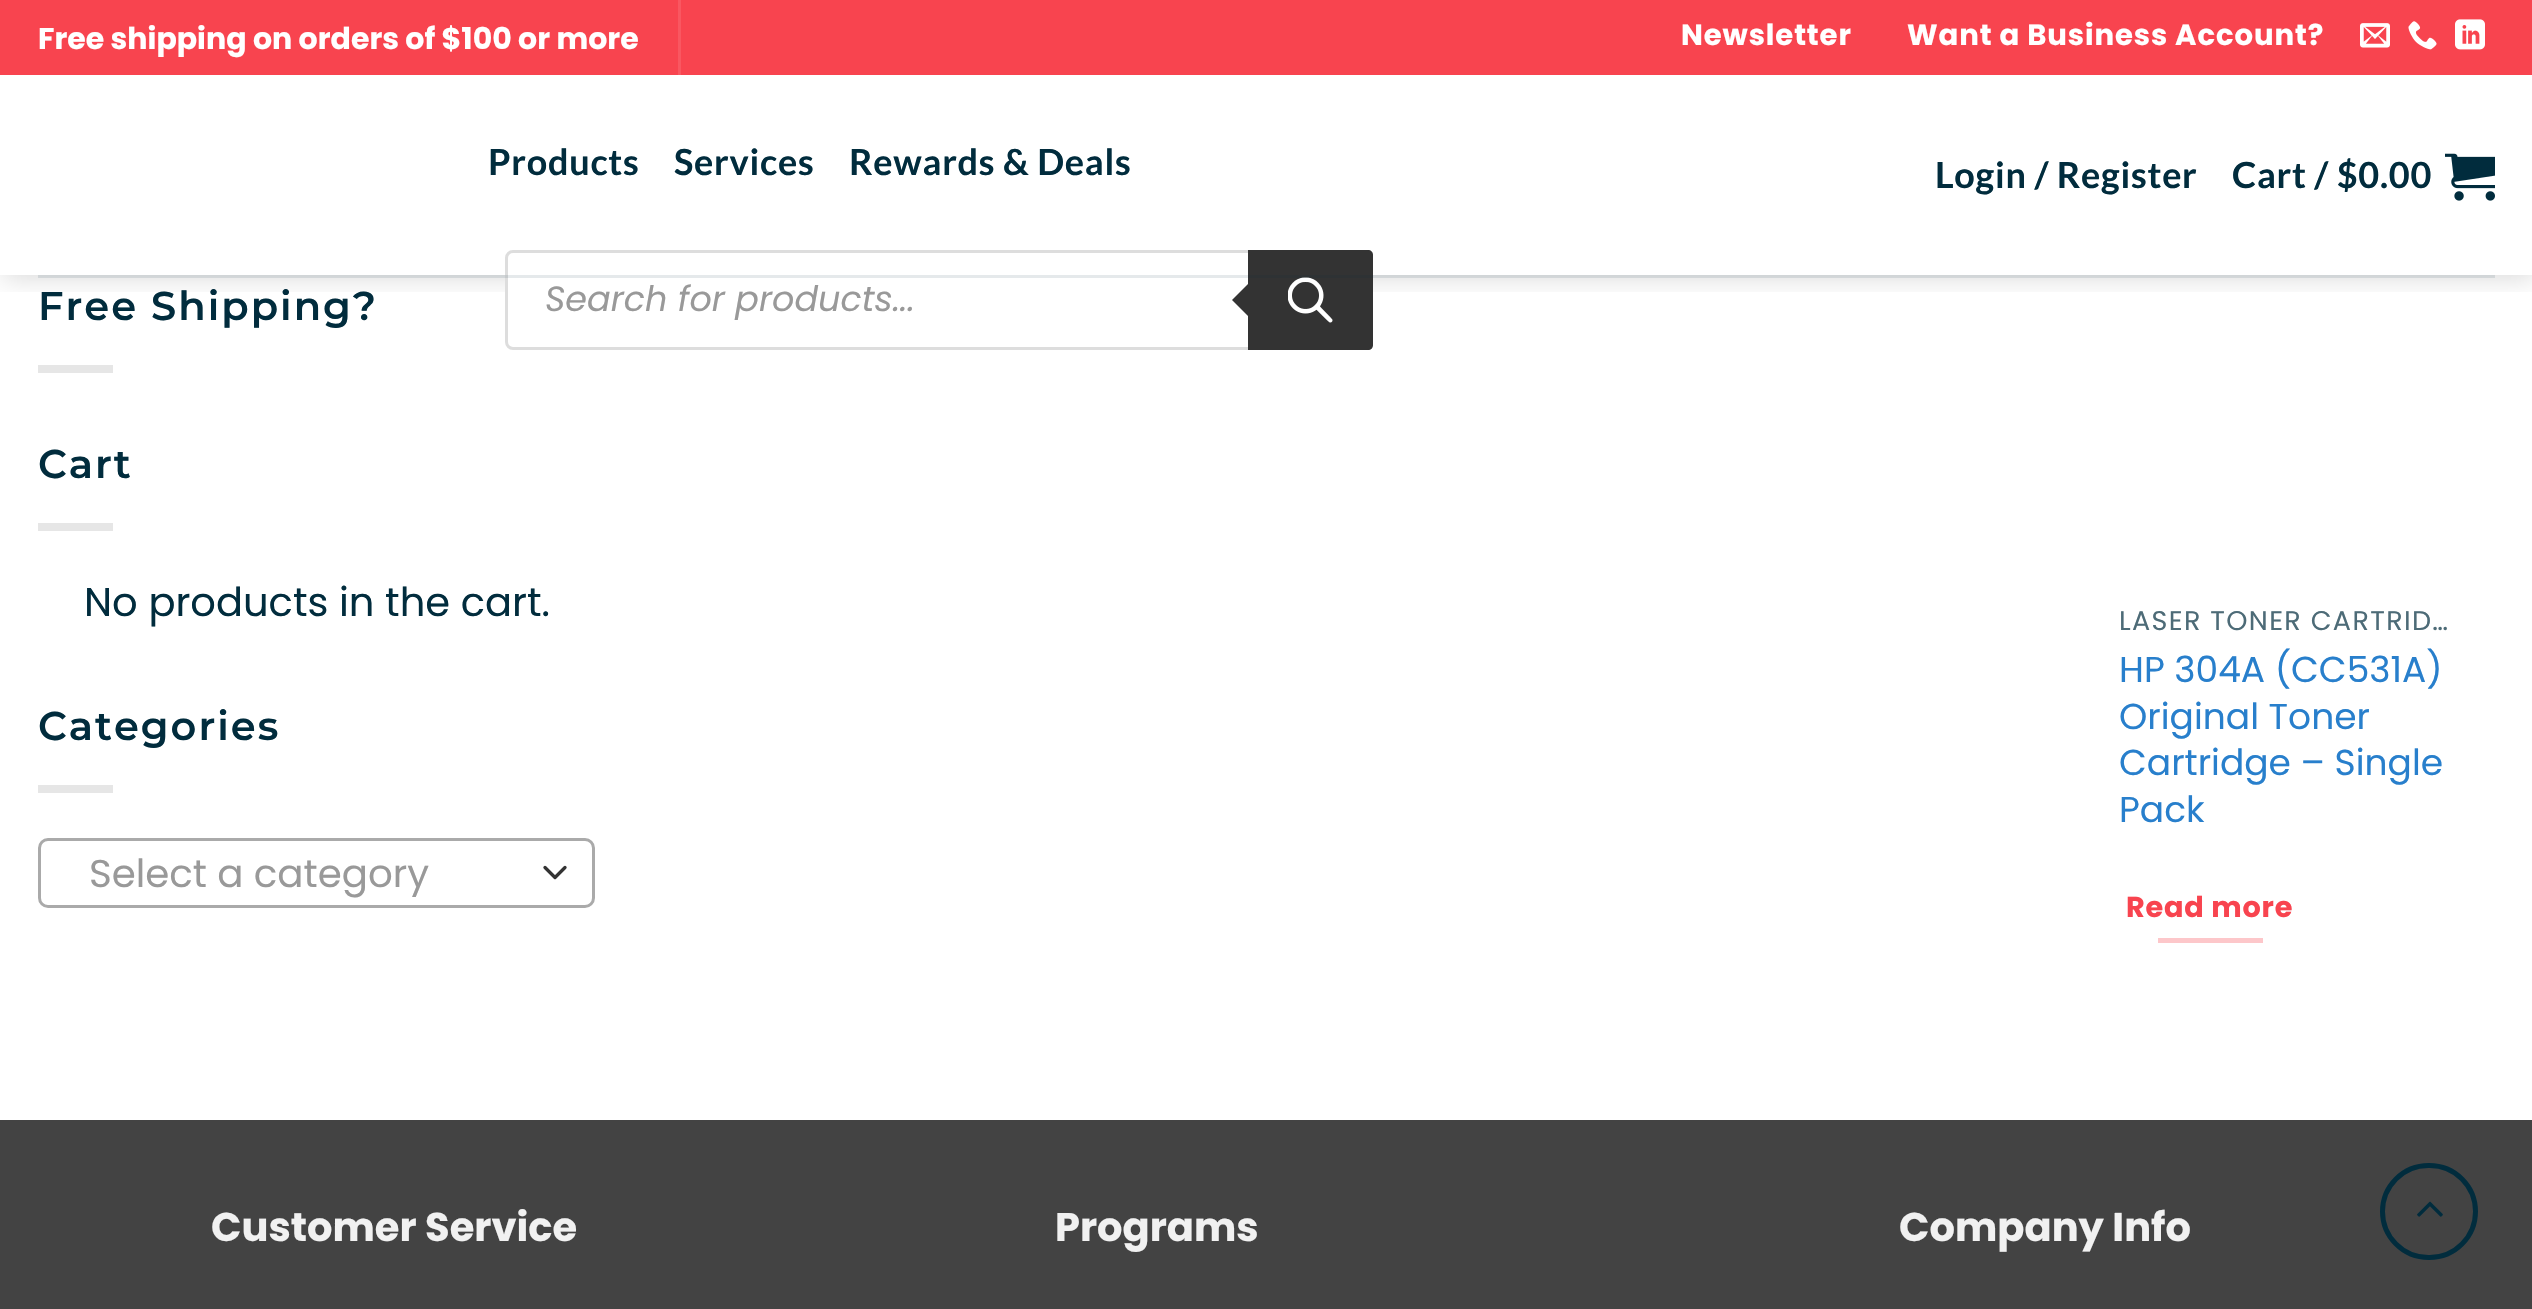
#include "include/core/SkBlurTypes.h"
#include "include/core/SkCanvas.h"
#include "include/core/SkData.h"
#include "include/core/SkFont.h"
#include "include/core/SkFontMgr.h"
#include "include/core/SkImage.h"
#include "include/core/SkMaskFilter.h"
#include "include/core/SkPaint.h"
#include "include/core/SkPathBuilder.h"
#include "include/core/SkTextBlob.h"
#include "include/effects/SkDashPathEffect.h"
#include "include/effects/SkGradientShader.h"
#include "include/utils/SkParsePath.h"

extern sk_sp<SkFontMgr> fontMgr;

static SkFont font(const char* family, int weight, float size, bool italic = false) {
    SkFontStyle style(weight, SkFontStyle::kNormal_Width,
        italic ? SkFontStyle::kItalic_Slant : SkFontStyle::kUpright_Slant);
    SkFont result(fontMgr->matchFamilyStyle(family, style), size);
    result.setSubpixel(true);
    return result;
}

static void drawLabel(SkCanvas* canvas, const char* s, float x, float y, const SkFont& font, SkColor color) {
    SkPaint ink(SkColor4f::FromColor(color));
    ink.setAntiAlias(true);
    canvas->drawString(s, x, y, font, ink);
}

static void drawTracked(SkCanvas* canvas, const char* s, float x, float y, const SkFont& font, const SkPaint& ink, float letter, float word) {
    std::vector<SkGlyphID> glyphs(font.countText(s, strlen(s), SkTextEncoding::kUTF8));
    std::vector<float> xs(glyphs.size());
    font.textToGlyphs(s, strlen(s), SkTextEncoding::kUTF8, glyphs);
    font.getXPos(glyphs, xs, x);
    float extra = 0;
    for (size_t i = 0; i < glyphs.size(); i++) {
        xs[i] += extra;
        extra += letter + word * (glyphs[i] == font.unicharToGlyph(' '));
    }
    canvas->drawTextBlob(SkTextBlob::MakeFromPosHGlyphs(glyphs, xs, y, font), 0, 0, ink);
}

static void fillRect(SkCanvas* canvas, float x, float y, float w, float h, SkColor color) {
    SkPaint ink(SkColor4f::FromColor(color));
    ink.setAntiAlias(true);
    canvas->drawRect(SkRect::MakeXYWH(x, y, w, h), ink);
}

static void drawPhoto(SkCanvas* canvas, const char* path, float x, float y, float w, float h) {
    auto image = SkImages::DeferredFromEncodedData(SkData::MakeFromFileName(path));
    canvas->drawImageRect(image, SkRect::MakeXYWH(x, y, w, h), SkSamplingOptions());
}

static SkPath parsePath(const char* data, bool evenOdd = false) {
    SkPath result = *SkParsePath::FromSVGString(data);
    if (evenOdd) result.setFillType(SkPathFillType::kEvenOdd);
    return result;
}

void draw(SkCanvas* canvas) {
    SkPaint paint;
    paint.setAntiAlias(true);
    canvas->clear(0xFFFFFFFF);
    canvas->save();
    canvas->clipRect(SkRect::MakeXYWH(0, 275, 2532, 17));
    paint.setColor(0x26000000);
    paint.setMaskFilter(SkMaskFilter::MakeBlur(kNormal_SkBlurStyle, 12.5f));
    canvas->drawRect(SkRect::MakeXYWH(3, 3, 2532, 275), paint);
    paint.setMaskFilter(nullptr);
    canvas->restore();
    fillRect(canvas, 0, 0, 2532, 75, 0xFFF8444F);
    SkFont font1 = font("Poppins", 700, 30);
    drawLabel(canvas, "Free shipping on orders of $100 or more", 38, 49, font1, 0xFFFFFFFF);
    fillRect(canvas, 678, 0, 3, 75, 0xFFF95761);
    SkFont font2 = font("Poppins", 700, 29.1f);
    paint.setColor(0xFFFFFFFF);
    drawTracked(canvas, "Newsletter", 1681, 45, font2, paint, 0.9f, 0);
    drawTracked(canvas, "Want a Business Account?", 1907, 45, font2, paint, 0.9f, 0);
    drawPhoto(canvas, "assets/img1.png", 2360, 23, 30, 25);
    drawPhoto(canvas, "assets/img2.png", 2408, 21, 29, 29);
    drawPhoto(canvas, "assets/img3.png", 2455, 19, 30, 31);
    SkFont font3 = font("Lato", 700, 36);
    paint.setColor(0xFF012C3D);
    drawTracked(canvas, "Products", 488, 175, font3, paint, 0.75f, 0);
    drawTracked(canvas, "Services", 674, 175, font3, paint, 0.75f, 0);
    drawTracked(canvas, "Rewards & Deals", 849, 175, font3, paint, 0.75f, 0);
    paint.setColor(0xFFFFFFFF);
    canvas->drawRoundRect(SkRect::MakeXYWH(506.5f, 251.5f, 865, 97), 6.5f, 6.5f, paint);
    paint.setStroke(true);
    paint.setStrokeWidth(3);
    paint.setColor(0xFFDDDDDD);
    canvas->drawRoundRect(SkRect::MakeXYWH(506.5f, 251.5f, 865, 97), 6.5f, 6.5f, paint);
    SkFont font4 = font("Poppins", 400, 35, true);
    drawLabel(canvas, "Search for products...", 545, 311, font4, 0xFF999999);
    paint.setStroke(false);
    paint.setColor(0xFF333333);
    canvas->drawPath(parsePath("M1248 250H1368C1371 250 1373 252 1373 255V345C1373 348 1371 350 1368 350H1248Z"), paint);
    canvas->drawPath(parsePath("M1252 280V320L1232 300Z"), paint);
    drawPhoto(canvas, "assets/img4.png", 1288, 277, 45, 46);
    paint.setColor(0xFF012C3D);
    drawTracked(canvas, "Login / Register", 1935, 188, font3, paint, 0.75f, 0);
    drawTracked(canvas, "Cart / $0.00", 2232, 188, font3, paint, 0.75f, 0);
    drawPhoto(canvas, "assets/img5.png", 2445, 153, 50, 48);
    fillRect(canvas, 38, 275, 2457, 3, 0x1A012C3D);
    SkFont font5 = font("Montserrat", 600, 40);
    drawTracked(canvas, "Free Shipping?", 38, 320, font5, paint, 2, 0);
    fillRect(canvas, 38, 365, 75, 8, 0xFFE6E6E6);
    drawTracked(canvas, "Cart", 38, 478, font5, paint, 2, 0);
    fillRect(canvas, 38, 523, 75, 8, 0xFFE6E6E6);
    SkFont font6 = font("Poppins", 400, 40);
    drawLabel(canvas, "No products in the cart.", 84, 616, font6, 0xFF012C3D);
    drawTracked(canvas, "Categories", 38, 740, font5, paint, 2, 0);
    fillRect(canvas, 38, 785, 75, 8, 0xFFE6E6E6);
    paint.setStroke(true);
    paint.setStrokeWidth(3.3f);
    paint.setStrokeCap(SkPaint::kRound_Cap);
    paint.setStrokeJoin(SkPaint::kRound_Join);
    paint.setColor(0xFF333333);
    canvas->drawPath(parsePath("M545 867.5L555 877.5L565 867.5"), paint);
    paint.setStrokeWidth(3);
    paint.setStrokeCap(SkPaint::kButt_Cap);
    paint.setStrokeJoin(SkPaint::kMiter_Join);
    paint.setColor(0xFFAAAAAA);
    canvas->drawRoundRect(SkRect::MakeXYWH(39.5f, 839.5f, 554, 67), 8.5f, 8.5f, paint);
    SkFont font7 = font("Poppins", 400, 38.75f);
    drawLabel(canvas, "Select a category", 89, 887, font7, 0xFF999999);
    SkFont font8 = font("Poppins", 400, 27);
    paint.setStroke(false);
    paint.setColor(0xFF4D6B77);
    drawTracked(canvas, "LASER TONER CARTRID…", 2119, 630, font8, paint, 1.35f, 0);
    SkFont font9 = font("Poppins", 400, 36);
    drawLabel(canvas, "HP 304A (CC531A)", 2119, 682, font9, 0xFF287FCC);
    drawLabel(canvas, "Original Toner", 2119, 729, font9, 0xFF287FCC);
    drawLabel(canvas, "Cartridge – Single", 2119, 775, font9, 0xFF287FCC);
    drawLabel(canvas, "Pack", 2119, 822, font9, 0xFF287FCC);
    SkFont font10 = font("Poppins", 700, 28.75f);
    paint.setColor(0xFFF8444F);
    drawTracked(canvas, "Read more", 2126, 917, font10, paint, 0.75f, 0);
    fillRect(canvas, 2158, 938, 105, 5, 0xFFFDC7CA);
    fillRect(canvas, 0, 1120, 2532, 189, 0xFF434343);
    SkFont font11 = font("Poppins", 700, 40);
    drawLabel(canvas, "Customer Service", 211, 1241, font11, 0xFFF1F1F1);
    drawLabel(canvas, "Programs", 1055, 1241, font11, 0xFFF1F1F1);
    drawLabel(canvas, "Company Info", 1899, 1241, font11, 0xFFF1F1F1);
    paint.setStroke(true);
    paint.setStrokeWidth(5);
    paint.setColor(0xFF012C3D);
    canvas->drawRoundRect(SkRect::MakeXYWH(2382.5f, 1165.5f, 93, 92), 46, 46, paint);
    drawPhoto(canvas, "assets/img6.png", 2417, 1201, 26, 16);
}
